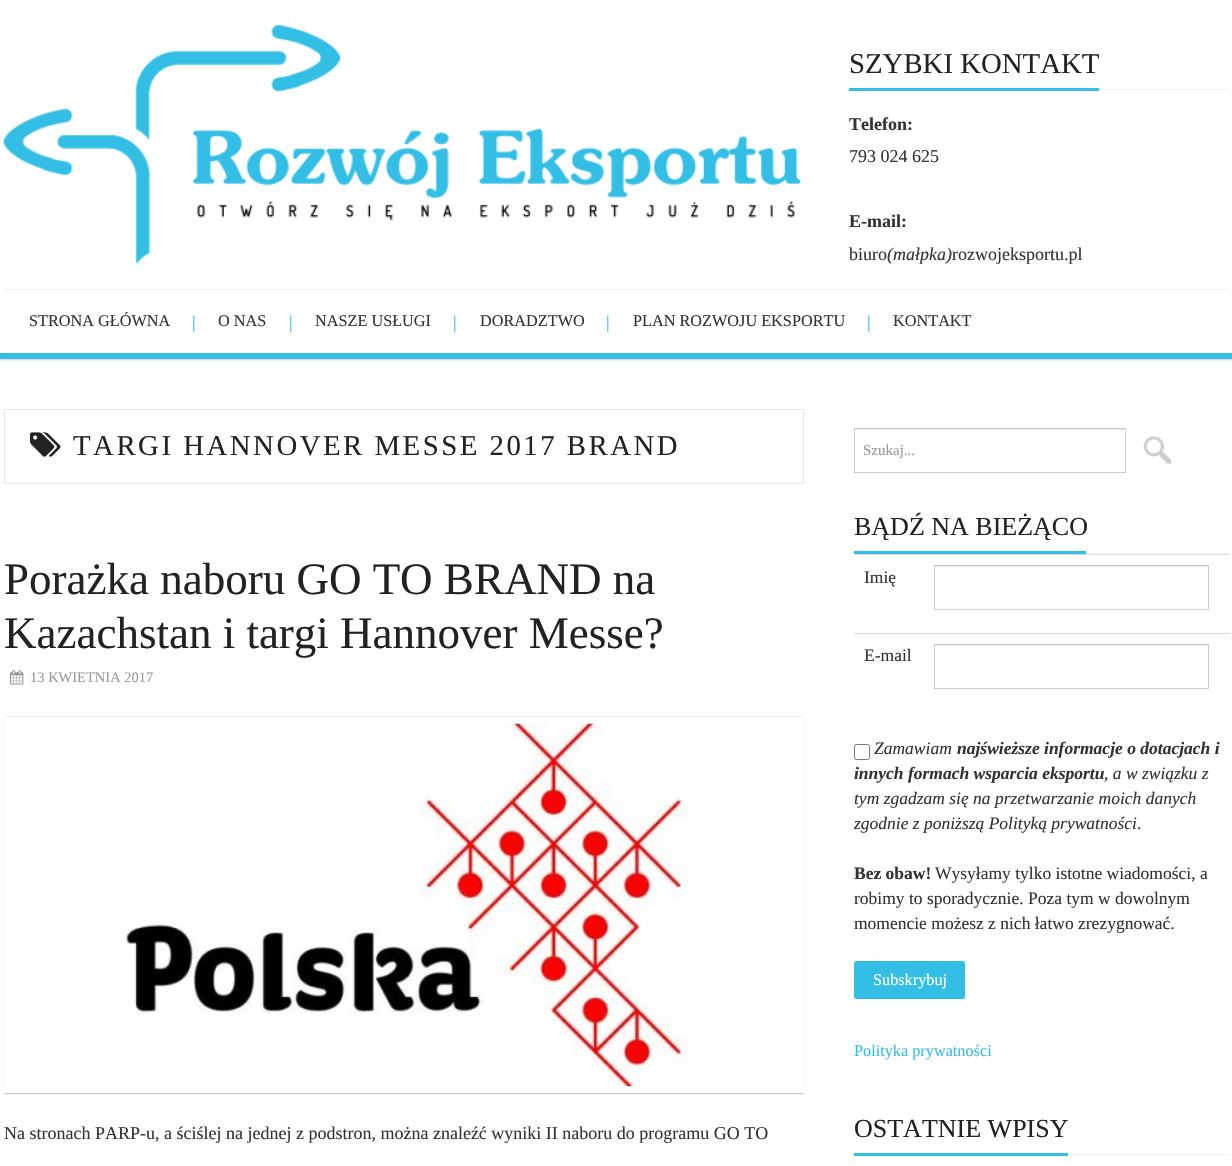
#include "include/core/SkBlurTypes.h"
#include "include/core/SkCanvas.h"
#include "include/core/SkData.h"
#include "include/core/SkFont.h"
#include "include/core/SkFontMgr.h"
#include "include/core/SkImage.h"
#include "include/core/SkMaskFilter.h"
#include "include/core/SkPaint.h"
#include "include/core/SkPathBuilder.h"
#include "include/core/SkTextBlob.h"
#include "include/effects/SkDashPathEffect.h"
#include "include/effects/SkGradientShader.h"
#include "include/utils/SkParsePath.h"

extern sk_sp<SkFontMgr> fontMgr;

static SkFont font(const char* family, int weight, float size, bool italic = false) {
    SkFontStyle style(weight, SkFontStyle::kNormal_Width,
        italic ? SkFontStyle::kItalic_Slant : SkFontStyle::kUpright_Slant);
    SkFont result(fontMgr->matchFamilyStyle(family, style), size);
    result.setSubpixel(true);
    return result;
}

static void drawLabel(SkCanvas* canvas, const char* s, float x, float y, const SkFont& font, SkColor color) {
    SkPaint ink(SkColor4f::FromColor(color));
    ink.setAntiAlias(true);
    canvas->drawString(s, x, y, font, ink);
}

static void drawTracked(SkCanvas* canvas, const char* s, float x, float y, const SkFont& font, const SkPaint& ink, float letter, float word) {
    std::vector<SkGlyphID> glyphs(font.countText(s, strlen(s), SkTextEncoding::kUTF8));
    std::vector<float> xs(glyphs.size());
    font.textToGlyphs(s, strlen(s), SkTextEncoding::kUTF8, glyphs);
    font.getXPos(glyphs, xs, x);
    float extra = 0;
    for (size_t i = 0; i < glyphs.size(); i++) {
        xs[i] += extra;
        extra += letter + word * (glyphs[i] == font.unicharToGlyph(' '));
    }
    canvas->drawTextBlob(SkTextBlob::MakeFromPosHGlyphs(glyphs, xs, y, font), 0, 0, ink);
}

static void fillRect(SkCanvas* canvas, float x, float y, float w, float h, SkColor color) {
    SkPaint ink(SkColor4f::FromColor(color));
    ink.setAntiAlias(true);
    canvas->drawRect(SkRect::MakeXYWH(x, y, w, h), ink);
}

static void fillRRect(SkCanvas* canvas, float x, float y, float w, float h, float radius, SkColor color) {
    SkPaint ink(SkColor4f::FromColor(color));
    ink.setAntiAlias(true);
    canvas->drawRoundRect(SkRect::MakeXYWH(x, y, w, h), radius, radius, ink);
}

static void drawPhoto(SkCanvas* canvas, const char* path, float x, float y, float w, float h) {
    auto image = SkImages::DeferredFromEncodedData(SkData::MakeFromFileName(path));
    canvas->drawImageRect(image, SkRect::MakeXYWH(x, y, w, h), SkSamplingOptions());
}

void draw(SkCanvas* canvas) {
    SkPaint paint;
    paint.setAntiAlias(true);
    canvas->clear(0xFFFFFFFF);
    paint.setColor(0x33000000);
    paint.setMaskFilter(SkMaskFilter::MakeBlur(kNormal_SkBlurStyle, 1));
    canvas->drawRect(SkRect::MakeXYWH(0, 1, 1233, 359), paint);
    paint.setMaskFilter(nullptr);
    fillRect(canvas, 0, 0, 1232, 353, 0xFFFFFFFF);
    fillRect(canvas, 0, 353, 1232, 6, 0xFF33BEE5);
    drawPhoto(canvas, "assets/img1.png", 3, 25, 799, 239);
    fillRect(canvas, 1099, 89, 130, 1, 0xFFF1F1F1);
    fillRect(canvas, 849, 88, 250, 3, 0xFF33BEE5);
    SkFont font1 = font("Liberation Serif", 400, 28.8f);
    drawLabel(canvas, "SZYBKI KONTAKT", 849, 73, font1, 0xFF222222);
    SkFont font2 = font("Liberation Serif", 700, 18);
    drawLabel(canvas, "Telefon:", 849, 130, font2, 0xFF333333);
    SkFont font3 = font("Liberation Serif", 400, 18);
    drawLabel(canvas, "793 024 625", 849, 162, font3, 0xFF333333);
    drawLabel(canvas, "E-mail:", 849, 227, font2, 0xFF333333);
    drawLabel(canvas, "biuro", 849, 260, font3, 0xFF333333);
    SkFont font4 = font("Liberation Serif", 400, 18, true);
    drawLabel(canvas, "(małpka)", 887, 260, font4, 0xFF333333);
    drawLabel(canvas, "rozwojeksportu.pl", 952, 260, font3, 0xFF333333);
    fillRect(canvas, 4, 289, 1225, 1, 0xFFF1F1F1);
    SkFont font5 = font("Liberation Serif", 400, 16.25f);
    drawLabel(canvas, "STRONA GŁÓWNA", 29, 326, font5, 0xFF333333);
    drawLabel(canvas, "|", 192, 328, font3, 0xFF33BEE5);
    drawLabel(canvas, "O NAS", 218, 326, font5, 0xFF333333);
    drawLabel(canvas, "|", 289, 328, font3, 0xFF33BEE5);
    drawLabel(canvas, "NASZE USŁUGI", 315, 326, font5, 0xFF333333);
    drawLabel(canvas, "|", 453, 328, font3, 0xFF33BEE5);
    drawLabel(canvas, "DORADZTWO", 480, 326, font5, 0xFF333333);
    drawLabel(canvas, "|", 606, 328, font3, 0xFF33BEE5);
    drawLabel(canvas, "PLAN ROZWOJU EKSPORTU", 633, 326, font5, 0xFF333333);
    drawLabel(canvas, "|", 867, 328, font3, 0xFF33BEE5);
    drawLabel(canvas, "KONTAKT", 893, 326, font5, 0xFF333333);
    paint.setStroke(true);
    paint.setStrokeWidth(1);
    paint.setColor(0xFFE6E6E6);
    canvas->drawRect(SkRect::MakeXYWH(4.5f, 409.5f, 799, 74), paint);
    drawPhoto(canvas, "assets/img2.png", 30, 432, 31, 25);
    paint.setStroke(false);
    paint.setColor(0xFF222222);
    drawTracked(canvas, "TARGI HANNOVER MESSE 2017 BRAND", 73, 455, font1, paint, 2.5f, 0);
    SkFont font6 = font("Liberation Serif", 400, 45);
    drawLabel(canvas, "Porażka naboru GO TO BRAND na", 4, 594, font6, 0xFF222222);
    drawLabel(canvas, "Kazachstan i targi Hannover Messe?", 4, 648, font6, 0xFF222222);
    drawPhoto(canvas, "assets/img3.png", 10, 670, 14, 15);
    SkFont font7 = font("Liberation Serif", 400, 14.5f);
    drawLabel(canvas, "13 KWIETNIA 2017", 30, 682, font7, 0xFF999999);
    paint.setColor(0x33000000);
    paint.setMaskFilter(SkMaskFilter::MakeBlur(kNormal_SkBlurStyle, 0.5f));
    canvas->drawRect(SkRect::MakeXYWH(4, 718, 800, 376), paint);
    paint.setMaskFilter(nullptr);
    fillRect(canvas, 4, 717, 800, 376, 0xFFFFFFFF);
    fillRect(canvas, 4, 716, 800, 1, 0xFFF1F1F1);
    drawPhoto(canvas, "assets/img4.png", 126, 723, 563, 364);
    drawLabel(canvas, "Na stronach PARP-u, a ściślej na jednej z podstron, można znaleźć wyniki II naboru do programu GO TO", 4, 1139, font3, 0xFF333333);
    fillRect(canvas, 855, 429, 270, 1, 0xFFECECEC);
    paint.setStroke(true);
    paint.setColor(0xFFCCCCCC);
    canvas->drawRect(SkRect::MakeXYWH(854.5f, 428.5f, 271, 44), paint);
    SkFont font8 = font("Liberation Serif", 400, 15);
    drawLabel(canvas, "Szukaj...", 863, 455, font8, 0xFF999999);
    drawPhoto(canvas, "assets/img5.png", 1143, 436, 29, 28);
    fillRect(canvas, 1086, 553, 143, 1, 0xFFF1F1F1);
    fillRect(canvas, 854, 551, 232, 3, 0xFF33BEE5);
    SkFont font9 = font("Liberation Serif", 400, 26);
    drawLabel(canvas, "BĄDŹ NA BIEŻĄCO", 854, 535, font9, 0xFF222222);
    fillRect(canvas, 854, 554, 376, 1, 0xFFDDDDDD);
    fillRect(canvas, 935, 566, 273, 1, 0xFFECECEC);
    canvas->drawRect(SkRect::MakeXYWH(934.5f, 565.5f, 274, 44), paint);
    SkFont font10 = font("Liberation Serif", 400, 17.5f);
    drawLabel(canvas, "Imię", 864, 583, font10, 0xFF333333);
    fillRect(canvas, 854, 633, 376, 1, 0xFFDDDDDD);
    fillRect(canvas, 935, 645, 273, 1, 0xFFECECEC);
    canvas->drawRect(SkRect::MakeXYWH(934.5f, 644.5f, 274, 44), paint);
    drawLabel(canvas, "E-mail", 864, 661, font10, 0xFF333333);
    paint.setColor(0xFF767676);
    canvas->drawRoundRect(SkRect::MakeXYWH(854.5f, 744.5f, 15, 15), 2, 2, paint);
    SkFont font11 = font("Liberation Serif", 400, 17.5f, true);
    drawLabel(canvas, "Zamawiam", 874, 754, font11, 0xFF333333);
    SkFont font12 = font("Liberation Serif", 700, 17.5f, true);
    drawLabel(canvas, "najświeższe informacje o dotacjach i", 957, 754, font12, 0xFF333333);
    drawLabel(canvas, "innych formach wsparcia eksportu", 854, 779, font12, 0xFF333333);
    drawLabel(canvas, ", a w związku z", 1104, 779, font11, 0xFF333333);
    drawLabel(canvas, "tym zgadzam się na przetwarzanie moich danych", 854, 804, font11, 0xFF333333);
    drawLabel(canvas, "zgodnie z poniższą Polityką prywatności", 854, 829, font11, 0xFF333333);
    drawLabel(canvas, ".", 1137, 829, font10, 0xFF333333);
    SkFont font13 = font("Liberation Serif", 700, 17.5f);
    drawLabel(canvas, "Bez obaw!", 854, 879, font13, 0xFF333333);
    drawLabel(canvas, "Wysyłamy tylko istotne wiadomości, a", 935, 879, font10, 0xFF333333);
    drawLabel(canvas, "robimy to sporadycznie. Poza tym w dowolnym", 854, 904, font10, 0xFF333333);
    drawLabel(canvas, "momencie możesz z nich łatwo zrezygnować.", 854, 929, font10, 0xFF333333);
    fillRRect(canvas, 854, 961, 111, 38, 2.5f, 0xFF33BEE5);
    drawLabel(canvas, "Subskrybuj", 873, 985, font5, 0xFFFFFFFF);
    drawLabel(canvas, "Polityka prywatności", 854, 1056, font5, 0xFF33BEE5);
    fillRect(canvas, 1068, 1154, 161, 1, 0xFFF1F1F1);
    fillRect(canvas, 854, 1153, 214, 3, 0xFF33BEE5);
    drawLabel(canvas, "OSTATNIE WPISY", 854, 1137, font9, 0xFF222222);
}
